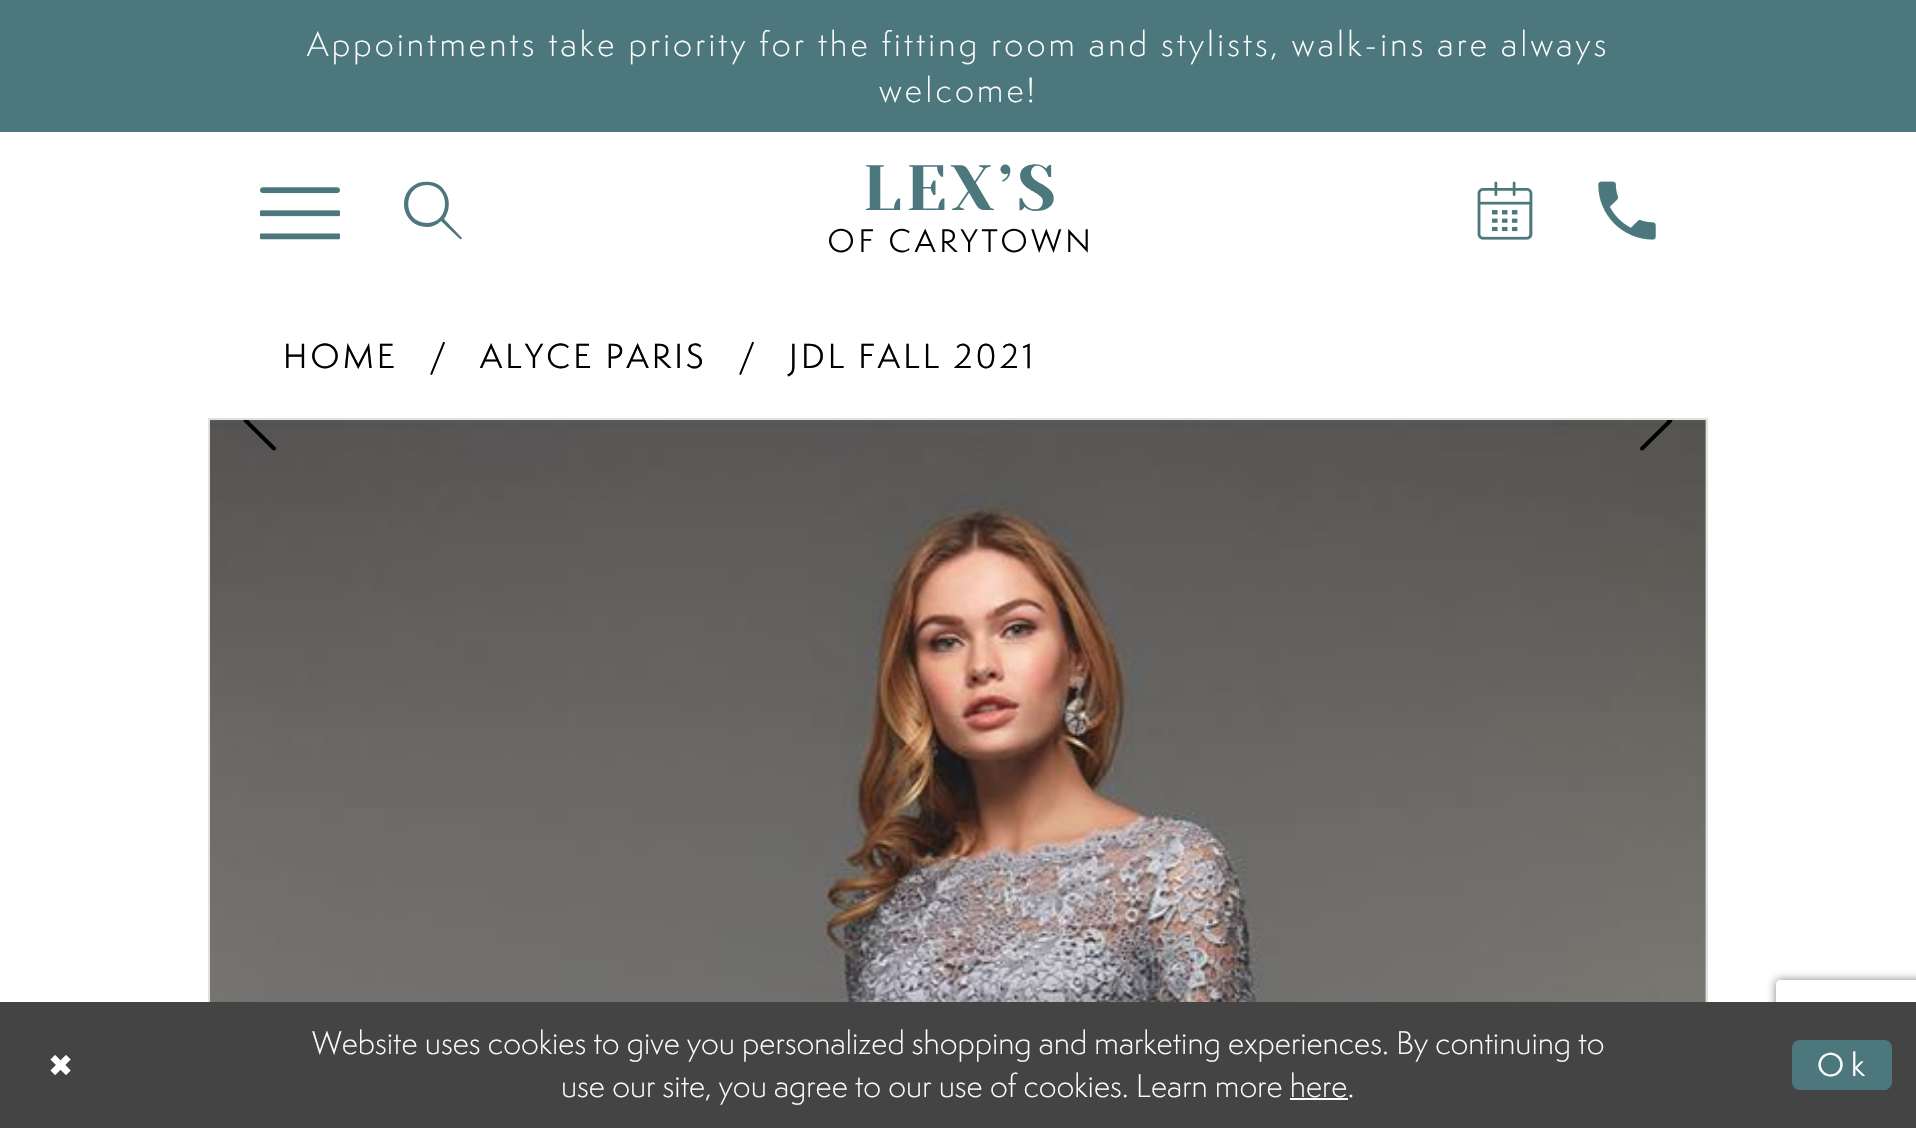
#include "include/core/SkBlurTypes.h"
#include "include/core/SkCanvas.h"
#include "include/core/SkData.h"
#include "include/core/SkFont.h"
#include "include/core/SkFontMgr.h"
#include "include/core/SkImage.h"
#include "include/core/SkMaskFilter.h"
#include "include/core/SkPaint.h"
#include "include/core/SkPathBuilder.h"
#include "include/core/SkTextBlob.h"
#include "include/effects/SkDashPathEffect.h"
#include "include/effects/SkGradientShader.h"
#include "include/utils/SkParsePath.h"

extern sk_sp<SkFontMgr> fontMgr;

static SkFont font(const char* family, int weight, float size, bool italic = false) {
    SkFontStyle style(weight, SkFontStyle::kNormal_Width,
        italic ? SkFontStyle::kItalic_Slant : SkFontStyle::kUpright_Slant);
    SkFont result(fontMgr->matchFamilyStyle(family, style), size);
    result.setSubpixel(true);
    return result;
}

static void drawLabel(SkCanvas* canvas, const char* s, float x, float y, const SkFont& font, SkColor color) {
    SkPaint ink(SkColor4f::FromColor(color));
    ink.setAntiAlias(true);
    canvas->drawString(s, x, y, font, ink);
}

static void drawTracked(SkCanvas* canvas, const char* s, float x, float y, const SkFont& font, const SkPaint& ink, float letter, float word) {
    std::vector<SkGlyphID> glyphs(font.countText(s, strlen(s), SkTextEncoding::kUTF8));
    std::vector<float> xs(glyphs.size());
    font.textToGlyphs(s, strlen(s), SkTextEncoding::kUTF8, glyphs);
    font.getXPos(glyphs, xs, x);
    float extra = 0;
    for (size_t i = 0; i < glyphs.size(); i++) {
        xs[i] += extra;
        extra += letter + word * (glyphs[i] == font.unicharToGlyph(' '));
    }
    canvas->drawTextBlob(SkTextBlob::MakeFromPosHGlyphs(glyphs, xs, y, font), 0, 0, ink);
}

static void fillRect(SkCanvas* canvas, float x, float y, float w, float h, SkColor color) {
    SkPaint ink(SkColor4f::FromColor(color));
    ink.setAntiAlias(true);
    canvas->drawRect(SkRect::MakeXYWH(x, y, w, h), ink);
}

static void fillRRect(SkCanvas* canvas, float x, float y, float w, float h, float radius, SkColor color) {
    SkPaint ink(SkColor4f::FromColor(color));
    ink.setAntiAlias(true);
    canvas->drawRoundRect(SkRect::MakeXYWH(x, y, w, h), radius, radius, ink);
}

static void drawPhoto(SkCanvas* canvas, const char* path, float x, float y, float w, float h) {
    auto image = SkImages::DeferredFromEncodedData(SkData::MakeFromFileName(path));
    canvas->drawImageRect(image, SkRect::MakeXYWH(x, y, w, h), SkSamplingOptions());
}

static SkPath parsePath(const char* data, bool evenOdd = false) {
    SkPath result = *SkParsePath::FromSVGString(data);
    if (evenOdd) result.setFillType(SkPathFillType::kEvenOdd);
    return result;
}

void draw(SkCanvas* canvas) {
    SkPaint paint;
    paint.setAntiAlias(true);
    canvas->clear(0xFFFFFFFF);
    fillRect(canvas, 0, 0, 1916, 132, 0xFF4B777D);
    SkFont font1 = font("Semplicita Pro", 300, 32);
    paint.setColor(0xFFFFFFFF);
    drawTracked(canvas, "Appointments take priority for the fitting room and stylists, walk-ins are always", 307, 56, font1, paint, 3.2f, 0);
    drawTracked(canvas, "welcome!", 879, 102, font1, paint, 3.2f, 0);
    drawPhoto(canvas, "assets/img1.png", 260, 187, 80, 53);
    paint.setColor(0xFF4B777D);
    canvas->drawPath(parsePath("M461 237C463 238 461 240 460 239L441 221C437 225 432 227 427 227C402 227 395 193 418 183C425 181 433 181 439 185C450 193 452 208 444 219ZM427 223C451 223 451 185 427 185C402 185 402 223 427 223Z"), paint);
    drawPhoto(canvas, "assets/img2.png", 829, 164, 259, 89);
    drawPhoto(canvas, "assets/img3.png", 1477, 181, 56, 59);
    drawPhoto(canvas, "assets/img4.png", 1598, 181, 58, 59);
    SkFont font2 = font("Semplicita Pro", 400, 32);
    paint.setColor(0xFF000000);
    drawTracked(canvas, "HOME", 283, 368, font2, paint, 3.2f, 0);
    drawTracked(canvas, "/", 429, 368, font2, paint, 3.2f, 0);
    drawTracked(canvas, "ALYCE PARIS", 480, 368, font2, paint, 3.2f, 0);
    drawTracked(canvas, "/", 738, 368, font2, paint, 3.2f, 0);
    drawTracked(canvas, "JDL FALL 2021", 789, 368, font2, paint, 3.2f, 0);
    paint.setStroke(true);
    paint.setStrokeWidth(2);
    paint.setColor(0xFFE0E0E0);
    canvas->drawRect(SkRect::MakeXYWH(209, 419, 1498, 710), paint);
    drawPhoto(canvas, "assets/img5.png", 210, 420, 1496, 582);
    drawPhoto(canvas, "assets/img6.png", 243, 420, 33, 31);
    drawPhoto(canvas, "assets/img7.png", 1640, 420, 33, 31);
    canvas->save();
    canvas->clipPath(parsePath("M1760 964H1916V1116H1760ZM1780 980H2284C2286 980 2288 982 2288 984V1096C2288 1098 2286 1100 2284 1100H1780C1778 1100 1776 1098 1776 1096V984C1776 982 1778 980 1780 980Z", true), true);
    paint.setStroke(false);
    paint.setColor(0xFF808080);
    paint.setMaskFilter(SkMaskFilter::MakeBlur(kNormal_SkBlurStyle, 5));
    canvas->drawRoundRect(SkRect::MakeXYWH(1776, 980, 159, 120), 4, 4, paint);
    paint.setMaskFilter(nullptr);
    canvas->restore();
    fillRect(canvas, 0, 1002, 1916, 126, 0xFF444444);
    SkFont font3 = font("DejaVu Sans", 400, 30);
    paint.setColor(0xFFFFFFFF);
    drawTracked(canvas, "✖", 48, 1076, font3, paint, 7, 0);
    SkFont font4 = font("Semplicita Pro", 300, 30);
    drawLabel(canvas, "Website uses cookies to give you personalized shopping and marketing experiences. By continuing to", 312, 1054, font4, 0xFFFFFFFF);
    drawLabel(canvas, "use our site, you agree to our use of cookies. Learn more here.", 561, 1097, font4, 0xFFFFFFFF);
    fillRect(canvas, 1290, 1098, 58, 2, 0xFFFFFFFF);
    fillRRect(canvas, 1792, 1040, 100, 50, 8, 0xFF4B777D);
    SkFont font5 = font("Semplicita Pro", 400, 30);
    drawTracked(canvas, "Ok", 1817, 1076, font5, paint, 7, 0);
}
